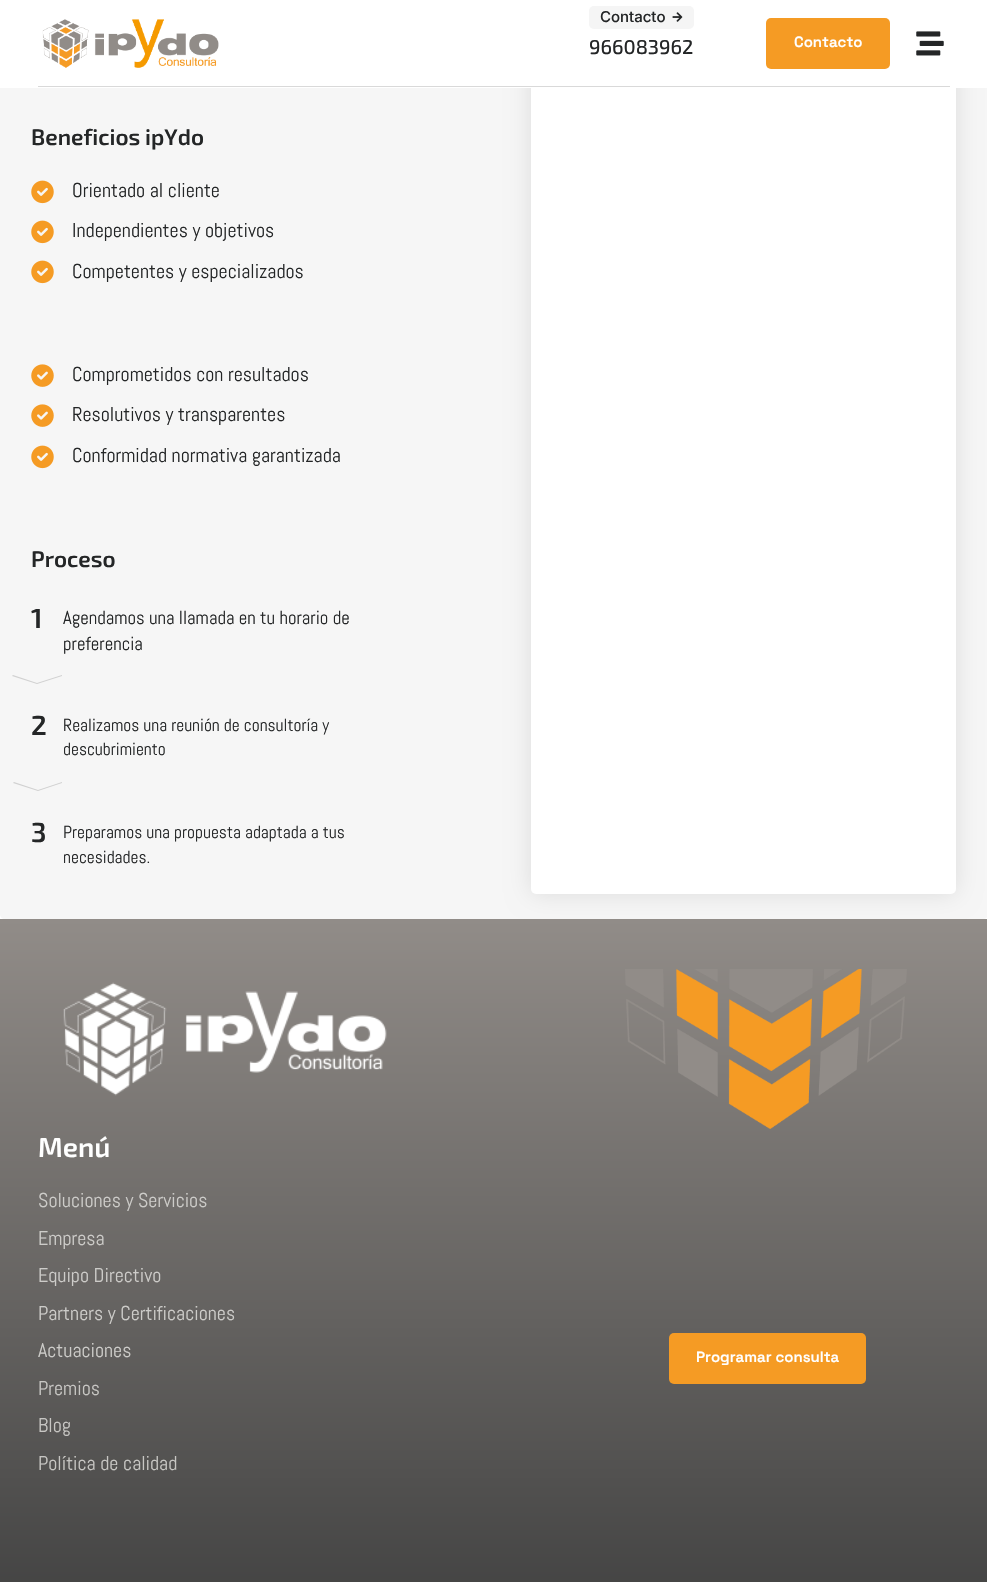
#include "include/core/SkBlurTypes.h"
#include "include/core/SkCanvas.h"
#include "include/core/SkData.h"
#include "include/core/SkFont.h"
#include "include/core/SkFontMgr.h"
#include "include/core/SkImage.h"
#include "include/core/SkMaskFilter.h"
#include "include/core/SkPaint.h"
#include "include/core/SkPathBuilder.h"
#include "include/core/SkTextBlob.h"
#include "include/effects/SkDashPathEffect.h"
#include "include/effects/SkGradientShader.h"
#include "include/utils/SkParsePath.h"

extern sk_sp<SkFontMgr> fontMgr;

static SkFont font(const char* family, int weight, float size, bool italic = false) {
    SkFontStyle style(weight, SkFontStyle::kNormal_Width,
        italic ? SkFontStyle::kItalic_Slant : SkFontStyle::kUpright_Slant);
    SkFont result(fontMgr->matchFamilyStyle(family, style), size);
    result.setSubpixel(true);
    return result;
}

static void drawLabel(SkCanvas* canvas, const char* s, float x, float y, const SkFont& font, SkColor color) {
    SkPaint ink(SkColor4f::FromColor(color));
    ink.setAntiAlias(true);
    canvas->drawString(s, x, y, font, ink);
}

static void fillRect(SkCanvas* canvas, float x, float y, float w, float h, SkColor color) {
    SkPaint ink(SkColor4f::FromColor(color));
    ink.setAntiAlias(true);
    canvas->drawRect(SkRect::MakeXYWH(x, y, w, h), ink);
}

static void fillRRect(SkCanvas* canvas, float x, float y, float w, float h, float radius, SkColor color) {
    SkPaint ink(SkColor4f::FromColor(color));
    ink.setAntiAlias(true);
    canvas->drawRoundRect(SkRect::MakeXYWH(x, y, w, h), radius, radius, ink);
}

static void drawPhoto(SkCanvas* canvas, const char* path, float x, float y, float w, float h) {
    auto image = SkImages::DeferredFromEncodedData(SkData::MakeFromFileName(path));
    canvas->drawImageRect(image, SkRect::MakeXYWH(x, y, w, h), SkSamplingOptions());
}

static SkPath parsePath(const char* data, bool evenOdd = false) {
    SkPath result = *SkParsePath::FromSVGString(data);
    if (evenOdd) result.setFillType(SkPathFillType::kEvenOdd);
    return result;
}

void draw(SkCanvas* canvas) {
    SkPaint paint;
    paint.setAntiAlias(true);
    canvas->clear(0xFFFFFFFF);
    paint.setColor(0xFFF6F6F6);
    canvas->drawPath(parsePath("M0-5H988V914C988 917 986 919 983 919H5C2 919 0 917 0 914Z"), paint);
    paint.setColor(0x1A000000);
    paint.setMaskFilter(SkMaskFilter::MakeBlur(kNormal_SkBlurStyle, 12.5f));
    canvas->drawRoundRect(SkRect::MakeXYWH(531, -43, 425, 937), 5, 5, paint);
    paint.setMaskFilter(nullptr);
    fillRRect(canvas, 531, -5, 425, 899, 5, 0xFFFFFFFF);
    fillRect(canvas, 0, 0, 987, 88, 0xFFFFFFFF);
    fillRRect(canvas, 589, 6, 105, 23, 5, 0xFFF5F5F5);
    SkFont font1 = font("Inter", 500, 15);
    drawLabel(canvas, "Contacto", 600, 22, font1, 0xFF242627);
    drawPhoto(canvas, "assets/img1.png", 672, 12, 11, 10);
    SkFont font2 = font("Exo 2", 500, 20);
    drawLabel(canvas, "966083962", 589, 54, font2, 0xFF242627);
    fillRRect(canvas, 766, 18, 124, 51, 5, 0xFFF59B24);
    SkFont font3 = font("Space Grotesk", 600, 15);
    drawLabel(canvas, "Contacto", 794, 47, font3, 0xFFFFFFFF);
    drawPhoto(canvas, "assets/img2.png", 916, 31, 28, 25);
    fillRect(canvas, 38, 86, 912, 1, 0xFFD9D9D9);
    drawPhoto(canvas, "assets/img3.png", 42, 19, 177, 49);
    SkFont font4 = font("Exo 2", 600, 22.5f);
    drawLabel(canvas, "Beneficios ipYdo", 31, 145, font4, 0xFF242627);
    drawPhoto(canvas, "assets/img4.png", 31, 180, 23, 24);
    SkFont font5 = font("Abel", 400, 20);
    drawLabel(canvas, "Orientado al cliente", 72, 197, font5, 0xFF242627);
    drawPhoto(canvas, "assets/img4.png", 31, 220, 23, 24);
    drawLabel(canvas, "Independientes y objetivos", 72, 237, font5, 0xFF242627);
    drawPhoto(canvas, "assets/img4.png", 31, 260, 23, 24);
    drawLabel(canvas, "Competentes y especializados", 72, 278, font5, 0xFF242627);
    drawPhoto(canvas, "assets/img5.png", 31, 364, 23, 23);
    drawLabel(canvas, "Comprometidos con resultados", 72, 381, font5, 0xFF242627);
    drawPhoto(canvas, "assets/img5.png", 31, 404, 23, 23);
    drawLabel(canvas, "Resolutivos y transparentes", 72, 421, font5, 0xFF242627);
    drawPhoto(canvas, "assets/img4.png", 31, 445, 23, 24);
    drawLabel(canvas, "Conformidad normativa garantizada", 72, 462, font5, 0xFF242627);
    drawLabel(canvas, "Proceso", 31, 567, font4, 0xFF242627);
    SkFont font6 = font("Exo 2", 600, 27.5f);
    drawLabel(canvas, "1", 31, 628, font6, 0xFF242627);
    SkFont font7 = font("Abel", 400, 18.75f);
    drawLabel(canvas, "Agendamos una llamada en tu horario de", 63, 624, font7, 0xFF242627);
    drawLabel(canvas, "preferencia", 63, 650, font7, 0xFF242627);
    paint.setColor(0xFFD1D1D1);
    canvas->drawPath(parsePath("M62 675V676L37 684L12 676L13 675L37 683Z"), paint);
    drawLabel(canvas, "2", 31, 735, font6, 0xFF242627);
    SkFont font8 = font("Abel", 400, 17.5f);
    drawLabel(canvas, "Realizamos una reunión de consultoría y", 63, 731, font8, 0xFF242627);
    drawLabel(canvas, "descubrimiento", 63, 755, font8, 0xFF242627);
    canvas->drawPath(parsePath("M62 782V783L38 791L13 783L14 782L38 790Z"), paint);
    drawLabel(canvas, "3", 31, 842, font6, 0xFF242627);
    drawLabel(canvas, "Preparamos una propuesta adaptada a tus", 63, 838, font8, 0xFF242627);
    drawLabel(canvas, "necesidades.", 63, 863, font8, 0xFF242627);
    {
        const SkColor colors[] = {0xFF918C88, 0xFF242627};
        const float stops[] = {0, 1};
        const SkPoint ends[] = {{494, 919}, {494, 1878}};
        paint.setShader(SkGradientShader::MakeLinear(ends, colors, stops, 2, SkTileMode::kClamp));
        paint.setAlpha(255);
    }
    canvas->drawRect(SkRect::MakeXYWH(0, 919, 987, 663), paint);
    drawPhoto(canvas, "assets/img6.png", 63, 982, 324, 114);
    drawLabel(canvas, "Menú", 38, 1157, font6, 0xFFFFFFFF);
    drawLabel(canvas, "Soluciones y Servicios", 38, 1207, font5, 0xFFCDCCC9);
    drawLabel(canvas, "Empresa", 38, 1245, font5, 0xFFCDCCC9);
    drawLabel(canvas, "Equipo Directivo", 38, 1282, font5, 0xFFCDCCC9);
    drawLabel(canvas, "Partners y Certificaciones", 38, 1320, font5, 0xFFCDCCC9);
    drawLabel(canvas, "Actuaciones", 38, 1357, font5, 0xFFCDCCC9);
    drawLabel(canvas, "Premios", 38, 1395, font5, 0xFFC7C6C3);
    drawLabel(canvas, "Blog", 38, 1432, font5, 0xFFC7C6C3);
    drawLabel(canvas, "Política de calidad", 38, 1470, font5, 0xFFC7C6C3);
    drawPhoto(canvas, "assets/img7.png", 625, 969, 282, 160);
    fillRRect(canvas, 669, 1333, 197, 51, 5, 0xFFF59B24);
    drawLabel(canvas, "Programar consulta", 696, 1362, font3, 0xFFFFFFFF);
}
